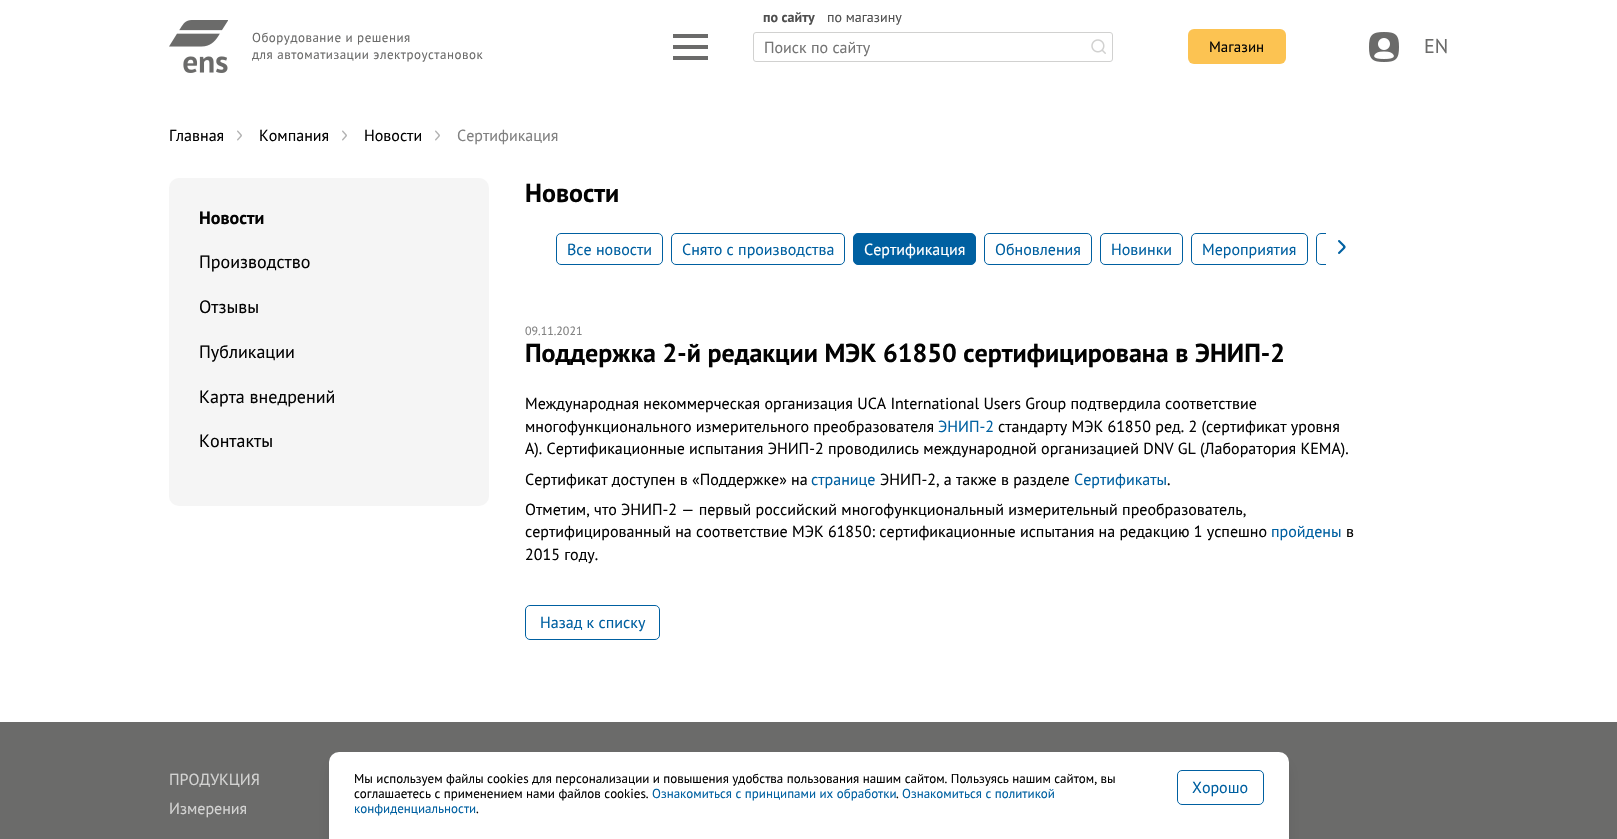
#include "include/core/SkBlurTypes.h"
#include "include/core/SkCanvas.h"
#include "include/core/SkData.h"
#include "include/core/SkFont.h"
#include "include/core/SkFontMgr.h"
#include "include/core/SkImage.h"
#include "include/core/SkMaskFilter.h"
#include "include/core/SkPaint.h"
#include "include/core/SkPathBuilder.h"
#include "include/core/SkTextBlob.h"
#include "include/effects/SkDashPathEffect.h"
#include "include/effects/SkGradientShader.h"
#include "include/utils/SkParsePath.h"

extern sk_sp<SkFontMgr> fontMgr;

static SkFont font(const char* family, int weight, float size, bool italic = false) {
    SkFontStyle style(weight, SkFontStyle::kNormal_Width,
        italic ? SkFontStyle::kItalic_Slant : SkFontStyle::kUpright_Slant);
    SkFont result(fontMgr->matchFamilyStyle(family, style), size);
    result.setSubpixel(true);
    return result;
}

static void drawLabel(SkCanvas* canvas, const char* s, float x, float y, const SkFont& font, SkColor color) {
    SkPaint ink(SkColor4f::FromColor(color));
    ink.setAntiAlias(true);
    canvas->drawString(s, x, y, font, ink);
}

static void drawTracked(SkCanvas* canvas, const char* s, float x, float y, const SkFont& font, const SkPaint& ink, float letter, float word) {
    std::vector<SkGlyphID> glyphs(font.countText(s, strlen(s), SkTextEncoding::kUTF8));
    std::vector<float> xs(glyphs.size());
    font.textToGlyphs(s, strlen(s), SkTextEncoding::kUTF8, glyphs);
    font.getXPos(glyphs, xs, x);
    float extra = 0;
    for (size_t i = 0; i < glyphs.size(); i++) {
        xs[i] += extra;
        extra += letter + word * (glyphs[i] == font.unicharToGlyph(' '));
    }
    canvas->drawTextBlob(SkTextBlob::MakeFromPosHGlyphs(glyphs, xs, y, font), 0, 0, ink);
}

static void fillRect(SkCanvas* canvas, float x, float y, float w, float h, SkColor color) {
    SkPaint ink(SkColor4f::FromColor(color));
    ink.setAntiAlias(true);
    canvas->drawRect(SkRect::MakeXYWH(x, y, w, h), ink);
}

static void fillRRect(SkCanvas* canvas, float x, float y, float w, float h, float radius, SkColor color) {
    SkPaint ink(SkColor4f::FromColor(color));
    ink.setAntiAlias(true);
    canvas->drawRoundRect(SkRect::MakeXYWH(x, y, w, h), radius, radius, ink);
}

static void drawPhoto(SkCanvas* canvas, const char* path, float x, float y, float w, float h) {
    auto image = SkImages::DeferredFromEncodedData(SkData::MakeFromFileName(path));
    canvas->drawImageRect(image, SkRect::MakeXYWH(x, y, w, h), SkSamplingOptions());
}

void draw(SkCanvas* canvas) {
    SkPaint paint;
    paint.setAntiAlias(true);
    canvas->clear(0xFFFFFFFF);
    drawPhoto(canvas, "assets/img1.png", 169, 20, 59, 53);
    SkFont font1 = font("PT Sans", 400, 13);
    paint.setColor(0xFF6B6B6A);
    drawTracked(canvas, "Оборудование и решения", 252, 42, font1, paint, 0.5f, 0);
    drawTracked(canvas, "для автоматизации электроустановок", 252, 59, font1, paint, 0.5f, 0);
    fillRect(canvas, 673, 34, 35, 4, 0xFF6B6B6A);
    fillRect(canvas, 673, 45, 35, 4, 0xFF6B6B6A);
    fillRect(canvas, 673, 56, 35, 4, 0xFF6B6B6A);
    SkFont font2 = font("PT Sans", 700, 14);
    drawLabel(canvas, "по сайту", 763, 22, font2, 0xFF4F4F4F);
    SkFont font3 = font("PT Sans", 400, 14);
    drawLabel(canvas, "по магазину", 827, 22, font3, 0xFF4F4F4F);
    paint.setStroke(true);
    paint.setStrokeWidth(1);
    paint.setColor(0xFFD1D1D0);
    canvas->drawRoundRect(SkRect::MakeXYWH(753.5f, 32.5f, 359, 29), 2.5f, 2.5f, paint);
    SkFont font4 = font("PT Sans", 400, 16);
    drawLabel(canvas, "Поиск по сайту", 764, 53, font4, 0xFF757575);
    drawPhoto(canvas, "assets/img2.png", 1091, 39, 15, 15);
    fillRRect(canvas, 1188, 29, 98, 35, 6, 0xFFFCC352);
    SkFont font5 = font("PT Sans", 400, 15);
    drawLabel(canvas, "Магазин", 1209, 52, font5, 0xFF030303);
    drawPhoto(canvas, "assets/img3.png", 1369, 32, 30, 30);
    SkFont font6 = font("PT Sans", 400, 20);
    drawLabel(canvas, "EN", 1424, 53, font6, 0xFF6B6B6A);
    drawLabel(canvas, "Главная", 169, 141, font4, 0xFF030303);
    drawPhoto(canvas, "assets/img4.png", 237, 130, 5, 11);
    drawLabel(canvas, "Компания", 259, 141, font4, 0xFF030303);
    drawPhoto(canvas, "assets/img4.png", 342, 130, 5, 11);
    drawLabel(canvas, "Новости", 364, 141, font4, 0xFF030303);
    drawPhoto(canvas, "assets/img4.png", 435, 130, 5, 11);
    drawLabel(canvas, "Сертификация", 457, 141, font4, 0xFF818181);
    fillRRect(canvas, 169, 178, 320, 328, 10, 0xFFF5F5F5);
    SkFont font7 = font("PT Sans", 700, 18);
    drawLabel(canvas, "Новости", 199, 224, font7, 0xFF030303);
    SkFont font8 = font("PT Sans", 400, 18);
    drawLabel(canvas, "Производство", 199, 268, font8, 0xFF030303);
    drawLabel(canvas, "Отзывы", 199, 313, font8, 0xFF030303);
    drawLabel(canvas, "Публикации", 199, 358, font8, 0xFF030303);
    drawLabel(canvas, "Карта внедрений", 199, 403, font8, 0xFF030303);
    drawLabel(canvas, "Контакты", 199, 447, font8, 0xFF030303);
    SkFont font9 = font("PT Sans", 700, 26);
    drawLabel(canvas, "Новости", 525, 202, font9, 0xFF030303);
    paint.setColor(0xFF0060A1);
    canvas->drawRoundRect(SkRect::MakeXYWH(556.5f, 233.5f, 106, 31), 4.5f, 4.5f, paint);
    drawLabel(canvas, "Все новости", 567, 255, font4, 0xFF0060A1);
    canvas->drawRoundRect(SkRect::MakeXYWH(671.5f, 233.5f, 173, 31), 4.5f, 4.5f, paint);
    drawLabel(canvas, "Снято с производства", 682, 255, font4, 0xFF0060A1);
    paint.setStroke(false);
    canvas->drawRoundRect(SkRect::MakeXYWH(853.5f, 233.5f, 122, 31), 4.5f, 4.5f, paint);
    paint.setStroke(true);
    canvas->drawRoundRect(SkRect::MakeXYWH(853.5f, 233.5f, 122, 31), 4.5f, 4.5f, paint);
    drawLabel(canvas, "Сертификация", 864, 255, font4, 0xFFFFFFFF);
    canvas->drawRoundRect(SkRect::MakeXYWH(984.5f, 233.5f, 107, 31), 4.5f, 4.5f, paint);
    drawLabel(canvas, "Обновления", 995, 255, font4, 0xFF0060A1);
    canvas->drawRoundRect(SkRect::MakeXYWH(1100.5f, 233.5f, 82, 31), 4.5f, 4.5f, paint);
    drawLabel(canvas, "Новинки", 1111, 255, font4, 0xFF0060A1);
    canvas->drawRoundRect(SkRect::MakeXYWH(1191.5f, 233.5f, 116, 31), 4.5f, 4.5f, paint);
    drawLabel(canvas, "Мероприятия", 1202, 255, font4, 0xFF0060A1);
    drawPhoto(canvas, "assets/img5.png", 1338, 240, 8, 14);
    canvas->save();
    canvas->clipRect(SkRect::MakeXYWH(556, 233, 770, 32));
    canvas->drawRoundRect(SkRect::MakeXYWH(1316.5f, 233.5f, 97, 31), 4.5f, 4.5f, paint);
    canvas->restore();
    SkFont font10 = font("PT Sans", 400, 12);
    drawLabel(canvas, "09.11.2021", 525, 335, font10, 0xFF818181);
    drawLabel(canvas, "Поддержка 2-й редакции МЭК 61850 сертифицирована в ЭНИП-2", 525, 362, font9, 0xFF030303);
    drawLabel(canvas, "Международная некоммерческая организация UCA International Users Group подтвердила соответствие", 525, 409, font4, 0xFF030303);
    drawLabel(canvas, "многофункционального измерительного преобразователя", 525, 432, font4, 0xFF030303);
    drawLabel(canvas, "ЭНИП-2", 938, 432, font4, 0xFF0060A1);
    drawLabel(canvas, "стандарту МЭК 61850 ред. 2 (сертификат уровня", 998, 432, font4, 0xFF030303);
    drawLabel(canvas, "A). Сертификационные испытания ЭНИП-2 проводились международной организацией DNV GL (Лаборатория KEMA).", 525, 454, font4, 0xFF030303);
    drawLabel(canvas, "Сертификат доступен в «Поддержке» на", 525, 485, font4, 0xFF030303);
    drawLabel(canvas, "странице", 811, 485, font4, 0xFF0060A1);
    drawLabel(canvas, "ЭНИП-2, а также в разделе", 880, 485, font4, 0xFF030303);
    drawLabel(canvas, "Сертификаты", 1074, 485, font4, 0xFF0060A1);
    drawLabel(canvas, ".", 1167, 485, font4, 0xFF030303);
    drawLabel(canvas, "Отметим, что ЭНИП-2 — первый российский многофункциональный измерительный преобразователь,", 525, 515, font4, 0xFF030303);
    drawLabel(canvas, "сертифицированный на соответствие МЭК 61850: сертификационные испытания на редакцию 1 успешно", 525, 537, font4, 0xFF030303);
    drawLabel(canvas, "пройдены", 1271, 537, font4, 0xFF0060A1);
    drawLabel(canvas, "в", 1346, 537, font4, 0xFF030303);
    drawLabel(canvas, "2015 году.", 525, 560, font4, 0xFF030303);
    canvas->drawRoundRect(SkRect::MakeXYWH(525.5f, 605.5f, 134, 34), 4.5f, 4.5f, paint);
    drawLabel(canvas, "Назад к списку", 540, 628, font4, 0xFF0060A1);
    fillRect(canvas, 0, 722, 1617, 117, 0xFF6B6B6A);
    drawLabel(canvas, "ПРОДУКЦИЯ", 169, 785, font4, 0xFFD3D3D2);
    drawLabel(canvas, "Измерения", 169, 814, font4, 0xFFD3D3D2);
    paint.setStroke(false);
    paint.setColor(0x1A000000);
    paint.setMaskFilter(SkMaskFilter::MakeBlur(kNormal_SkBlurStyle, 7.5f));
    canvas->drawRoundRect(SkRect::MakeXYWH(332, 765, 954, 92), 7, 7, paint);
    paint.setMaskFilter(nullptr);
    fillRRect(canvas, 329, 752, 960, 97, 10, 0xFFFFFFFF);
    drawLabel(canvas, "Мы используем файлы cookies для персонализации и повышения удобства пользования нашим сайтом. Пользуясь нашим сайтом, вы", 354, 783, font1, 0xFF030303);
    drawLabel(canvas, "соглашаетесь с применением нами файлов cookies.", 354, 798, font1, 0xFF030303);
    drawLabel(canvas, "Ознакомиться с принципами их обработки", 652, 798, font1, 0xFF0060A1);
    drawLabel(canvas, ".", 896, 798, font1, 0xFF030303);
    drawLabel(canvas, "Ознакомиться с политикой", 902, 798, font1, 0xFF0060A1);
    drawLabel(canvas, "конфиденциальности", 354, 813, font1, 0xFF0060A1);
    drawLabel(canvas, ".", 476, 813, font1, 0xFF030303);
    paint.setStroke(true);
    paint.setColor(0xFF0060A1);
    canvas->drawRoundRect(SkRect::MakeXYWH(1177.5f, 770.5f, 86, 34), 4.5f, 4.5f, paint);
    drawLabel(canvas, "Хорошо", 1192, 793, font4, 0xFF0060A1);
}
